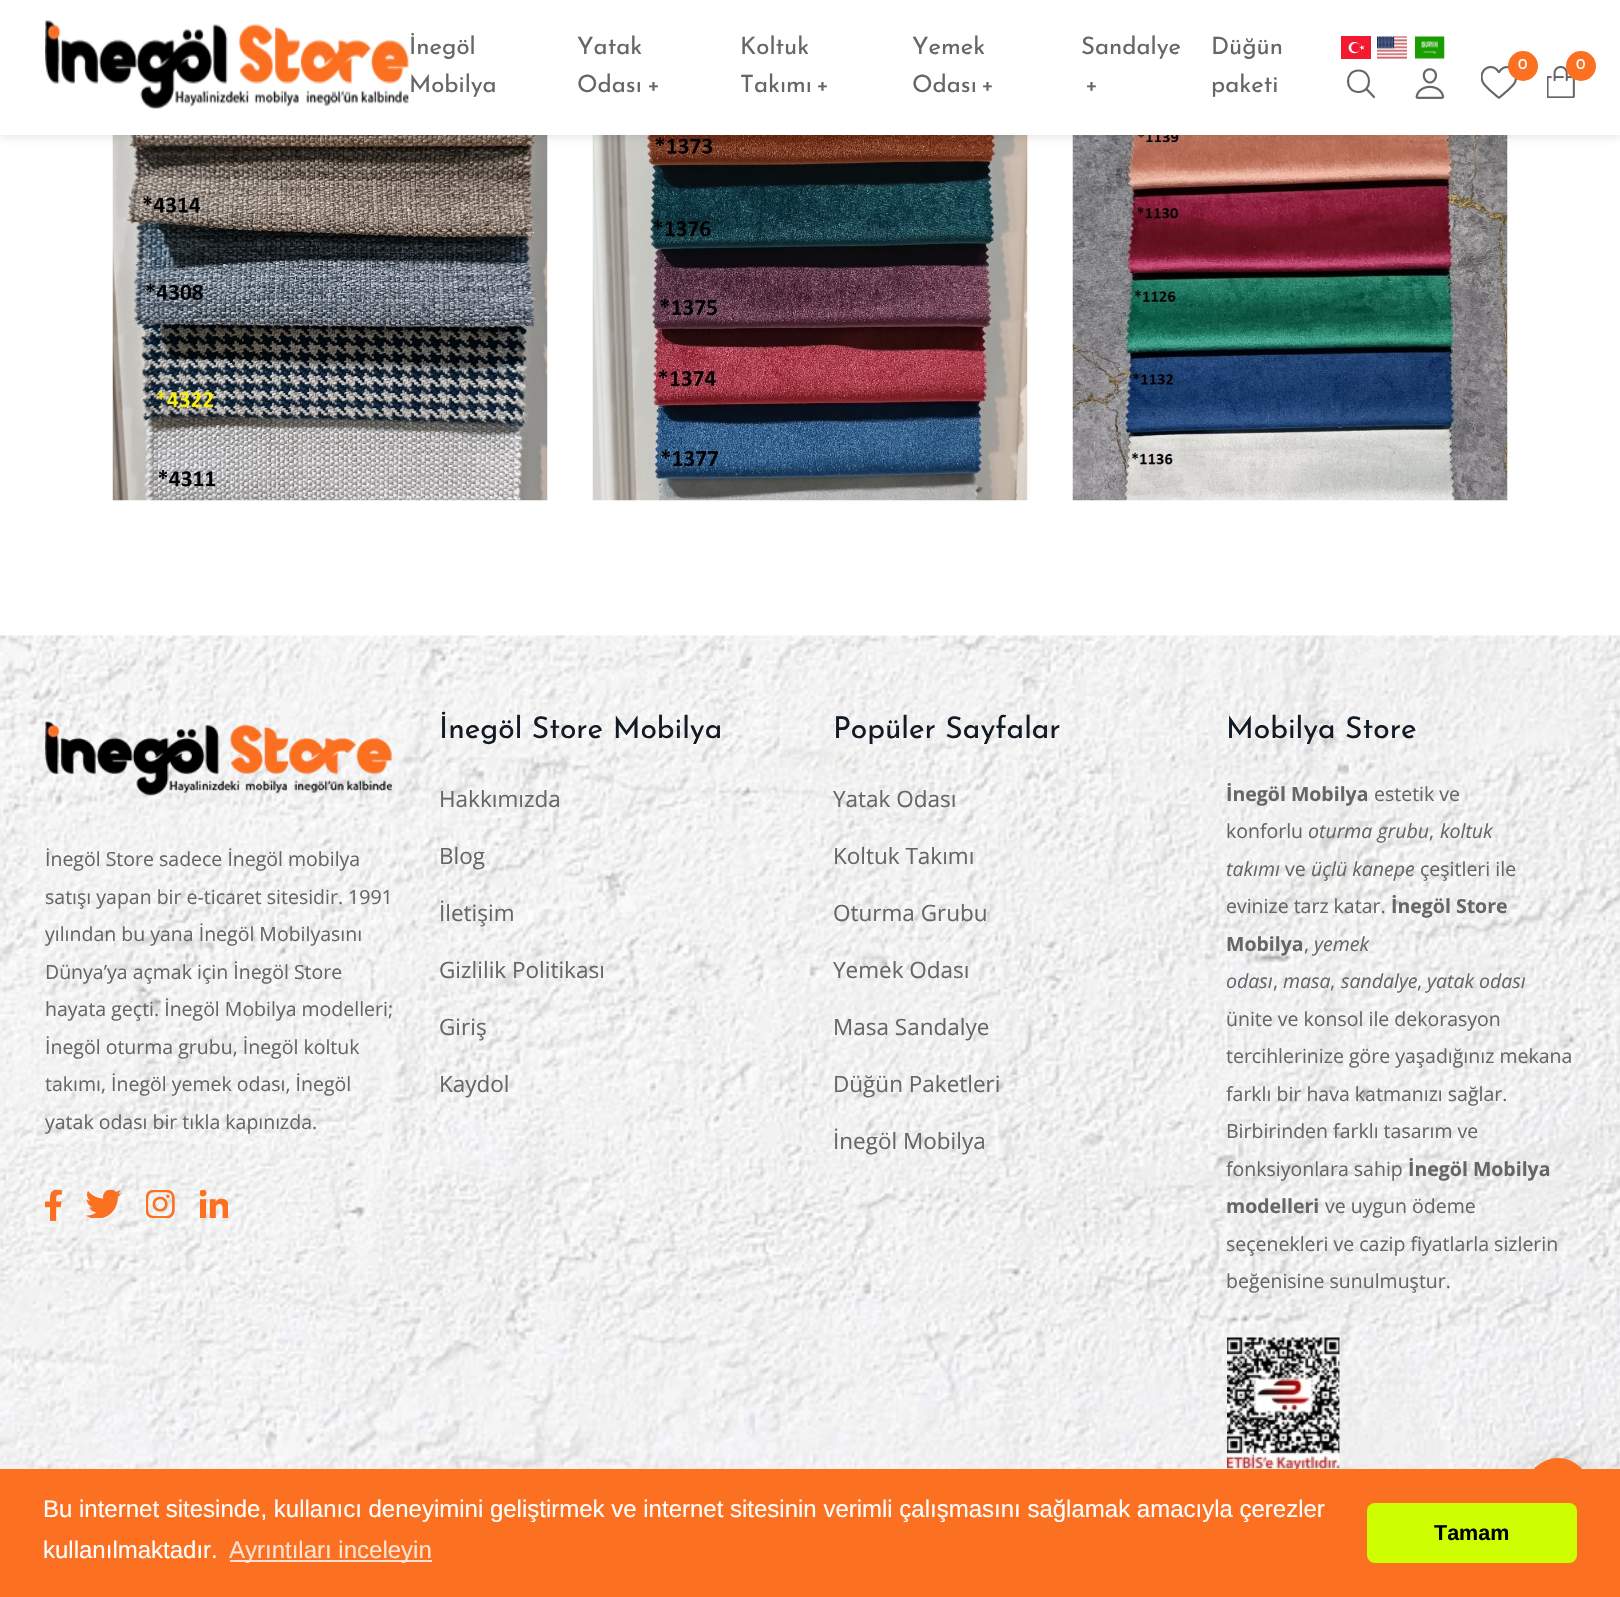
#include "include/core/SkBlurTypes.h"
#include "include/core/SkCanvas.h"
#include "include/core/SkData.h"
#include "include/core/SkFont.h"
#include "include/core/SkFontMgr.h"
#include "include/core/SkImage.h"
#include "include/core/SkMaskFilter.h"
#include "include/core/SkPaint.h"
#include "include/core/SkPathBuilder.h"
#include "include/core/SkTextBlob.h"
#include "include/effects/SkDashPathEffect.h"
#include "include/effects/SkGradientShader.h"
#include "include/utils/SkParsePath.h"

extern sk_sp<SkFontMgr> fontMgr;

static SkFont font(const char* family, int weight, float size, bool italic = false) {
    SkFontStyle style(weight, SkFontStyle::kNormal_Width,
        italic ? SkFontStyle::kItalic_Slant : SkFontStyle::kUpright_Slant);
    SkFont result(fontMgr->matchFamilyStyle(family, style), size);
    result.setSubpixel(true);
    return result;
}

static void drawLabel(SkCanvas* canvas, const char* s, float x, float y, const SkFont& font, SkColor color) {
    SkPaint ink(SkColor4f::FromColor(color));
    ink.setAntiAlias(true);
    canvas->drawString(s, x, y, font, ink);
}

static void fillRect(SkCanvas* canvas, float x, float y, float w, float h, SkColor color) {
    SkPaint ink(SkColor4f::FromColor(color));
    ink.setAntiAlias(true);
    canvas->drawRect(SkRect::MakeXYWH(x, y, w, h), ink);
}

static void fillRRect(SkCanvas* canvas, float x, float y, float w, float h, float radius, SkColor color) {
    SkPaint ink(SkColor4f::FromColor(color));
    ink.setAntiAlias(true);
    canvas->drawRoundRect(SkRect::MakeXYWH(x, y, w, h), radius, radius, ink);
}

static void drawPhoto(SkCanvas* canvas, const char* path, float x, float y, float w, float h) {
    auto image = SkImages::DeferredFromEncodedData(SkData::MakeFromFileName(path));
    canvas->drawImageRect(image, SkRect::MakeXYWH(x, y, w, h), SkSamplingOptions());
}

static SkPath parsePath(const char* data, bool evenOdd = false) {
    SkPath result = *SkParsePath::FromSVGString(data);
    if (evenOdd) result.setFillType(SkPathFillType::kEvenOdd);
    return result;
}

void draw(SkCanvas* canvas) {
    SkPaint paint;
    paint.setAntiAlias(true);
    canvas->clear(0xFFFFFFFF);
    drawPhoto(canvas, "assets/img8.png", 112, 135, 436, 366);
    drawPhoto(canvas, "assets/img9.png", 592, 135, 436, 366);
    drawPhoto(canvas, "assets/img10.png", 1072, 135, 436, 366);
    paint.setColor(0x26000000);
    paint.setMaskFilter(SkMaskFilter::MakeBlur(kNormal_SkBlurStyle, 5));
    canvas->drawRect(SkRect::MakeXYWH(0, 0, 1620, 135), paint);
    paint.setMaskFilter(nullptr);
    fillRect(canvas, 0, 0, 1620, 135, 0xFFFFFFFF);
    drawPhoto(canvas, "assets/img1.png", 45, 20, 364, 89);
    SkFont font1 = font("Josefin Sans", 400, 24);
    drawLabel(canvas, "İnegöl", 409, 54, font1, 0xFF666666);
    drawLabel(canvas, "Mobilya", 409, 92, font1, 0xFF666666);
    drawLabel(canvas, "Yatak", 577, 54, font1, 0xFF666666);
    drawLabel(canvas, "Odası", 577, 92, font1, 0xFF666666);
    drawLabel(canvas, "+", 647, 92, font1, 0xFF666666);
    drawLabel(canvas, "Koltuk", 740, 54, font1, 0xFF666666);
    drawLabel(canvas, "Takımı", 740, 92, font1, 0xFF666666);
    drawLabel(canvas, "+", 816, 92, font1, 0xFF666666);
    drawLabel(canvas, "Yemek", 912, 54, font1, 0xFF666666);
    drawLabel(canvas, "Odası", 912, 92, font1, 0xFF666666);
    drawLabel(canvas, "+", 981, 92, font1, 0xFF666666);
    drawLabel(canvas, "Sandalye", 1081, 54, font1, 0xFF666666);
    drawLabel(canvas, "+", 1085, 92, font1, 0xFF666666);
    drawLabel(canvas, "Düğün", 1211, 54, font1, 0xFF666666);
    drawLabel(canvas, "paketi", 1211, 92, font1, 0xFF666666);
    drawPhoto(canvas, "assets/img2.png", 1341, 36, 30, 23);
    drawPhoto(canvas, "assets/img3.png", 1377, 36, 30, 23);
    drawPhoto(canvas, "assets/img4.png", 1415, 36, 30, 23);
    drawPhoto(canvas, "assets/img5.png", 1481, 66, 36, 33);
    paint.setColor(0xFFFB7021);
    canvas->drawCircle(1523, 66, 15, paint);
    SkFont font2 = font("Josefin Sans", 400, 15);
    drawLabel(canvas, "0", 1518, 69, font2, 0xFFFFFFFF);
    drawPhoto(canvas, "assets/img6.png", 1547, 66, 28, 32);
    canvas->drawCircle(1581, 66, 15, paint);
    drawLabel(canvas, "0", 1576, 69, font2, 0xFFFFFFFF);
    paint.setStroke(true);
    paint.setStrokeWidth(2.2f);
    paint.setColor(0xFF666666);
    canvas->drawPath(parsePath("M1358.5 70.5C1344.5 70.5 1344.5 92 1358.5 92C1372.5 92 1372.5 70.5 1358.5 70.5Z"), paint);
    paint.setStrokeCap(SkPaint::kRound_Cap);
    canvas->drawPath(parsePath("M1366.5 89L1374 97"), paint);
    drawPhoto(canvas, "assets/img7.png", 1415, 68, 30, 31);
    drawPhoto(canvas, "assets/img11.png", 0, 635, 1620, 834);
    drawPhoto(canvas, "assets/img12.png", 45, 721, 347, 75);
    SkFont font3 = font("Open Sans", 400, 19.5f);
    drawLabel(canvas, "İnegöl Store sadece İnegöl mobilya", 45, 866, font3, 0xFF666666);
    drawLabel(canvas, "satışı yapan bir e-ticaret sitesidir. 1991", 45, 904, font3, 0xFF666666);
    drawLabel(canvas, "yılından bu yana İnegöl Mobilyasını", 45, 941, font3, 0xFF666666);
    drawLabel(canvas, "Dünya’ya açmak için İnegöl Store", 45, 979, font3, 0xFF666666);
    drawLabel(canvas, "hayata geçti. İnegöl Mobilya modelleri;", 45, 1016, font3, 0xFF666666);
    drawLabel(canvas, "İnegöl oturma grubu, İnegöl koltuk", 45, 1054, font3, 0xFF666666);
    drawLabel(canvas, "takımı, İnegöl yemek odası, İnegöl", 45, 1091, font3, 0xFF666666);
    drawLabel(canvas, "yatak odası bir tıkla kapınızda.", 45, 1129, font3, 0xFF666666);
    drawPhoto(canvas, "assets/img13.png", 45, 1190, 17, 31);
    drawPhoto(canvas, "assets/img14.png", 86, 1190, 36, 28);
    drawPhoto(canvas, "assets/img15.png", 146, 1190, 29, 28);
    drawPhoto(canvas, "assets/img16.png", 200, 1190, 28, 28);
    SkFont font4 = font("Josefin Sans", 400, 30);
    drawLabel(canvas, "İnegöl Store Mobilya", 439, 738, font4, 0xFF121A25);
    SkFont font5 = font("Open Sans", 400, 22.5f);
    drawLabel(canvas, "Hakkımızda", 439, 807, font5, 0xFF666666);
    drawLabel(canvas, "Blog", 439, 864, font5, 0xFF666666);
    drawLabel(canvas, "İletişim", 439, 921, font5, 0xFF666666);
    drawLabel(canvas, "Gizlilik Politikası", 439, 978, font5, 0xFF666666);
    drawLabel(canvas, "Giriş", 439, 1035, font5, 0xFF666666);
    drawLabel(canvas, "Kaydol", 439, 1092, font5, 0xFF666666);
    drawLabel(canvas, "Popüler Sayfalar", 833, 738, font4, 0xFF121A25);
    drawLabel(canvas, "Yatak Odası", 833, 807, font5, 0xFF666666);
    drawLabel(canvas, "Koltuk Takımı", 833, 864, font5, 0xFF666666);
    drawLabel(canvas, "Oturma Grubu", 833, 921, font5, 0xFF666666);
    drawLabel(canvas, "Yemek Odası", 833, 978, font5, 0xFF666666);
    drawLabel(canvas, "Masa Sandalye", 833, 1035, font5, 0xFF666666);
    drawLabel(canvas, "Düğün Paketleri", 833, 1092, font5, 0xFF666666);
    drawLabel(canvas, "İnegöl Mobilya", 833, 1149, font5, 0xFF666666);
    drawLabel(canvas, "Mobilya Store", 1226, 738, font4, 0xFF121A25);
    SkFont font6 = font("Open Sans", 700, 19.5f);
    drawLabel(canvas, "İnegöl Mobilya", 1226, 801, font6, 0xFF666666);
    drawLabel(canvas, "estetik ve", 1374, 801, font3, 0xFF666666);
    drawLabel(canvas, "konforlu", 1226, 838, font3, 0xFF666666);
    SkFont font7 = font("Open Sans", 400, 19.5f, true);
    drawLabel(canvas, "oturma grubu", 1308, 838, font7, 0xFF666666);
    drawLabel(canvas, ",", 1429, 838, font3, 0xFF666666);
    drawLabel(canvas, "koltuk", 1440, 838, font7, 0xFF666666);
    drawLabel(canvas, "takımı", 1226, 876, font7, 0xFF666666);
    drawLabel(canvas, "ve", 1285, 876, font3, 0xFF666666);
    drawLabel(canvas, "üçlü kanepe", 1311, 876, font7, 0xFF666666);
    drawLabel(canvas, "çeşitleri ile", 1420, 876, font3, 0xFF666666);
    drawLabel(canvas, "evinize tarz katar.", 1226, 913, font3, 0xFF666666);
    drawLabel(canvas, "İnegöl Store", 1391, 913, font6, 0xFF666666);
    drawLabel(canvas, "Mobilya", 1226, 951, font6, 0xFF666666);
    drawLabel(canvas, ",", 1304, 951, font3, 0xFF666666);
    drawLabel(canvas, "yemek", 1314, 951, font7, 0xFF666666);
    drawLabel(canvas, "odası", 1226, 988, font7, 0xFF666666);
    drawLabel(canvas, ",", 1273, 988, font3, 0xFF666666);
    drawLabel(canvas, "masa", 1283, 988, font7, 0xFF666666);
    drawLabel(canvas, ",", 1330, 988, font3, 0xFF666666);
    drawLabel(canvas, "sandalye", 1341, 988, font7, 0xFF666666);
    drawLabel(canvas, ",", 1417, 988, font3, 0xFF666666);
    drawLabel(canvas, "yatak odası", 1427, 988, font7, 0xFF666666);
    drawLabel(canvas, "ünite ve konsol ile dekorasyon", 1226, 1026, font3, 0xFF666666);
    drawLabel(canvas, "tercihlerinize göre yaşadığınız mekana", 1226, 1063, font3, 0xFF666666);
    drawLabel(canvas, "farklı bir hava katmanızı sağlar.", 1226, 1101, font3, 0xFF666666);
    drawLabel(canvas, "Birbirinden farklı tasarım ve", 1226, 1138, font3, 0xFF666666);
    drawLabel(canvas, "fonksiyonlara sahip", 1226, 1176, font3, 0xFF666666);
    drawLabel(canvas, "İnegöl Mobilya", 1408, 1176, font6, 0xFF666666);
    drawLabel(canvas, "modelleri", 1226, 1213, font6, 0xFF666666);
    drawLabel(canvas, "ve uygun ödeme", 1325, 1213, font3, 0xFF666666);
    drawLabel(canvas, "seçenekleri ve cazip fiyatlarla sizlerin", 1226, 1251, font3, 0xFF666666);
    drawLabel(canvas, "beğenisine sunulmuştur.", 1226, 1288, font3, 0xFF666666);
    drawPhoto(canvas, "assets/img17.png", 1227, 1337, 113, 132);
    paint.setStroke(false);
    paint.setColor(0x29000000);
    paint.setMaskFilter(SkMaskFilter::MakeBlur(kNormal_SkBlurStyle, 16.5f));
    canvas->drawRoundRect(SkRect::MakeXYWH(1526, 1461, 64, 65), 32, 32, paint);
    paint.setMaskFilter(nullptr);
    fillRRect(canvas, 1526, 1458, 64, 65, 32, 0xFFFB7021);
    fillRect(canvas, 0, 1469, 1620, 128, 0xFFFB7021);
    SkFont font8 = font("Liberation Sans", 400, 24);
    drawLabel(canvas, "Bu internet sitesinde, kullanıcı deneyimini geliştirmek ve internet sitesinin verimli çalışmasını sağlamak amacıyla çerezler", 43, 1517, font8, 0xFFFFFFFF);
    drawLabel(canvas, "kullanılmaktadır.", 43, 1558, font8, 0xFFFFFFFF);
    fillRect(canvas, 230, 1560, 202, 2, 0xFFFEE2D3);
    drawLabel(canvas, "Ayrıntıları inceleyin", 229, 1558, font8, 0xFFFEE2D3);
    fillRRect(canvas, 1367, 1503, 210, 60, 8, 0xFFCEFF00);
    SkFont font9 = font("Liberation Sans", 700, 21.5f);
    drawLabel(canvas, "Tamam", 1434, 1540, font9, 0xFF000000);
}
